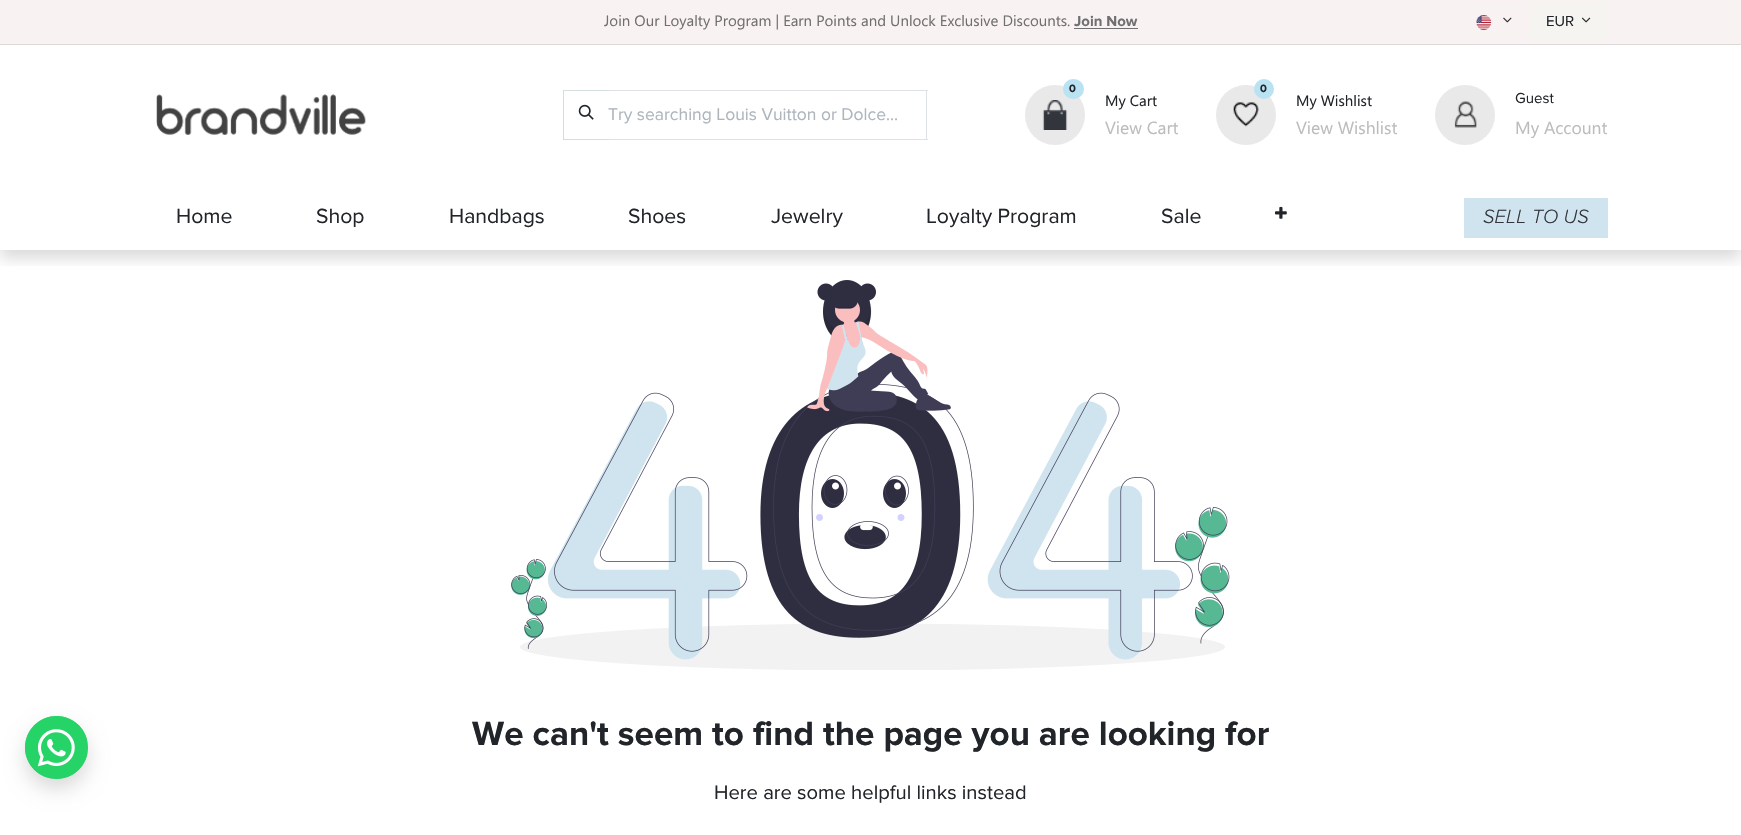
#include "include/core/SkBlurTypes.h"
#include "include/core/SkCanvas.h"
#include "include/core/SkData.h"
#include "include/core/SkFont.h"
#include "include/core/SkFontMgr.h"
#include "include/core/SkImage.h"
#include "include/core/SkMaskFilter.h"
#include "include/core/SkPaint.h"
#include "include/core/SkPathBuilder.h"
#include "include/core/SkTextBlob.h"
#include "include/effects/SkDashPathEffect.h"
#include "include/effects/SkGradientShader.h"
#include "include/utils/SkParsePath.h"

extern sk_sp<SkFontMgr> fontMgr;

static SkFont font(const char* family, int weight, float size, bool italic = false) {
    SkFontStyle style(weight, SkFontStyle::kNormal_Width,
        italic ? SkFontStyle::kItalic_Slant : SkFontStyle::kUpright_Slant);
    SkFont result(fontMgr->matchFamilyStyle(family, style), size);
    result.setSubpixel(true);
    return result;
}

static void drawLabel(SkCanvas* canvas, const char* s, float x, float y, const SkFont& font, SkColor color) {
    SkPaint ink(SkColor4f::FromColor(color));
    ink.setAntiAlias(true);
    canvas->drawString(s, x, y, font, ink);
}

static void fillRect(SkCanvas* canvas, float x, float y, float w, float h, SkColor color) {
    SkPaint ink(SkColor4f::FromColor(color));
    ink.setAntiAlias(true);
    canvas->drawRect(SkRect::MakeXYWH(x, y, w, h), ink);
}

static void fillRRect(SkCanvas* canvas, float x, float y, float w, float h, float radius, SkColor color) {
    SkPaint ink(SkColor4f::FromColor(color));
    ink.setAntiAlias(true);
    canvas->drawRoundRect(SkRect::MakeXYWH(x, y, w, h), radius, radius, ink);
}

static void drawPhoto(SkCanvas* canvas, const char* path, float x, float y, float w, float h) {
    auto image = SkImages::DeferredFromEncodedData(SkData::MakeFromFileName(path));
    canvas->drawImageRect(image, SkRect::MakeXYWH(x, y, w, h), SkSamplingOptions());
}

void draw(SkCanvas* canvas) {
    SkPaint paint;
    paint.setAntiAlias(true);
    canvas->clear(0xFFFFFFFF);
    paint.setColor(0x26000000);
    paint.setMaskFilter(SkMaskFilter::MakeBlur(kNormal_SkBlurStyle, 10));
    canvas->drawRoundRect(SkRect::MakeXYWH(25, 726, 63, 63), 31.5f, 31.5f, paint);
    paint.setMaskFilter(nullptr);
    paint.setColor(0xFF25D366);
    canvas->drawCircle(56.5f, 747.5f, 31.5f, paint);
    drawPhoto(canvas, "assets/img1.png", 25, 716, 63, 63);
    fillRect(canvas, 0, 0, 1741, 44, 0xFFF9F2F2);
    fillRect(canvas, 0, 44, 1741, 1, 0xFFDFD9DA);
    SkFont font1 = font("Segoe UI", 400, 15);
    drawLabel(canvas, "Join Our Loyalty Program | Earn Points and Unlock Exclusive Discounts.", 604, 26, font1, 0xFF707070);
    SkFont font2 = font("Proxima Nova", 700, 15);
    drawLabel(canvas, "Join Now", 1074, 26, font2, 0xFF707070);
    fillRect(canvas, 1074, 28, 64, 1, 0xFF707070);
    paint.setStroke(true);
    paint.setStrokeWidth(1);
    paint.setColor(0xFFF5F4F0);
    canvas->drawRect(SkRect::MakeXYWH(1469.5f, 8.5f, 50, 26), paint);
    drawPhoto(canvas, "assets/img2.png", 1476, 15, 16, 15);
    drawPhoto(canvas, "assets/img3.png", 1503, 17, 9, 6);
    fillRect(canvas, 1530, 1, 78, 40, 0xFFF5F4F0);
    SkFont font3 = font("Proxima Nova", 400, 15);
    drawLabel(canvas, "EUR", 1546, 26, font3, 0xFF212529);
    drawPhoto(canvas, "assets/img4.png", 1581, 17, 10, 6);
    drawPhoto(canvas, "assets/img5.png", 156, 94, 210, 41);
    fillRect(canvas, 563, 90, 46, 1, 0xFFD6DDDF);
    fillRect(canvas, 563, 139, 46, 1, 0xFFD6DDDF);
    fillRect(canvas, 563, 90, 1, 50, 0xFFD6DDDF);
    drawPhoto(canvas, "assets/img6.png", 578, 104, 16, 16);
    fillRect(canvas, 609, 90, 319, 1, 0xFFDEE2E6);
    fillRect(canvas, 926, 90, 1, 50, 0xFFDEE2E6);
    fillRect(canvas, 609, 139, 319, 1, 0xFFDEE2E6);
    SkFont font4 = font("Proxima Nova", 400, 17.5f);
    drawLabel(canvas, "Try searching Louis Vuitton or Dolce…", 608, 120, font4, 0xFFADB5BD);
    paint.setStroke(false);
    paint.setColor(0xFFE9E9EA);
    canvas->drawCircle(1055, 115, 30, paint);
    fillRRect(canvas, 1063, 79, 21, 20, 10, 0xFFB9E2F3);
    SkFont font5 = font("Proxima Nova", 700, 11);
    drawLabel(canvas, "0", 1069, 92, font5, 0xFF212529);
    drawPhoto(canvas, "assets/img7.png", 1042, 100, 26, 30);
    drawLabel(canvas, "My Cart", 1105, 106, font1, 0xFF212529);
    SkFont font6 = font("Segoe UI", 400, 17.5f);
    drawLabel(canvas, "View Cart", 1105, 134, font6, 0xFFBCBCBC);
    canvas->drawCircle(1246, 115, 30, paint);
    paint.setColor(0xFFB9E2F3);
    canvas->drawCircle(1264, 89, 10, paint);
    drawLabel(canvas, "0", 1260, 92, font5, 0xFF212529);
    drawPhoto(canvas, "assets/img8.png", 1233, 102, 26, 25);
    drawLabel(canvas, "My Wishlist", 1296, 106, font1, 0xFF212529);
    drawLabel(canvas, "View Wishlist", 1296, 134, font6, 0xFFBCBCBC);
    paint.setColor(0xFFE9E9EA);
    canvas->drawCircle(1465, 115, 30, paint);
    drawPhoto(canvas, "assets/img9.png", 1454, 101, 23, 27);
    drawLabel(canvas, "Guest", 1515, 103, font3, 0xFF212529);
    drawLabel(canvas, "My Account", 1515, 134, font6, 0xFFBCBCBC);
    drawPhoto(canvas, "assets/img11.png", 511, 280, 719, 390);
    canvas->save();
    canvas->clipRect(SkRect::MakeXYWH(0, 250, 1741, 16));
    paint.setColor(0x26000000);
    paint.setMaskFilter(SkMaskFilter::MakeBlur(kNormal_SkBlurStyle, 7.5f));
    canvas->drawRect(SkRect::MakeXYWH(0, 193, 1741, 65), paint);
    paint.setMaskFilter(nullptr);
    canvas->restore();
    SkFont font7 = font("Proxima Nova", 400, 21.25f);
    drawLabel(canvas, "Home", 176, 223, font7, 0xFF212529);
    drawLabel(canvas, "Shop", 316, 223, font7, 0xFF212529);
    drawLabel(canvas, "Handbags", 449, 223, font7, 0xFF212529);
    drawLabel(canvas, "Shoes", 628, 223, font7, 0xFF212529);
    drawLabel(canvas, "Jewelry", 771, 223, font7, 0xFF212529);
    drawLabel(canvas, "Loyalty Program", 926, 223, font7, 0xFF212529);
    drawLabel(canvas, "Sale", 1161, 223, font7, 0xFF212529);
    drawPhoto(canvas, "assets/img10.png", 1275, 206, 12, 13);
    fillRect(canvas, 1464, 198, 144, 40, 0xFFD0E4EF);
    SkFont font8 = font("Proxima Nova", 300, 20, true);
    drawLabel(canvas, "SELL TO US", 1483, 223, font8, 0xFF32353C);
    SkFont font9 = font("Proxima Nova", 700, 35);
    drawLabel(canvas, "We can't seem to find the page you are looking for", 472, 745, font9, 0xFF212529);
    SkFont font10 = font("Proxima Nova", 400, 20.25f);
    drawLabel(canvas, "Here are some helpful links instead", 714, 799, font10, 0xFF212529);
}
